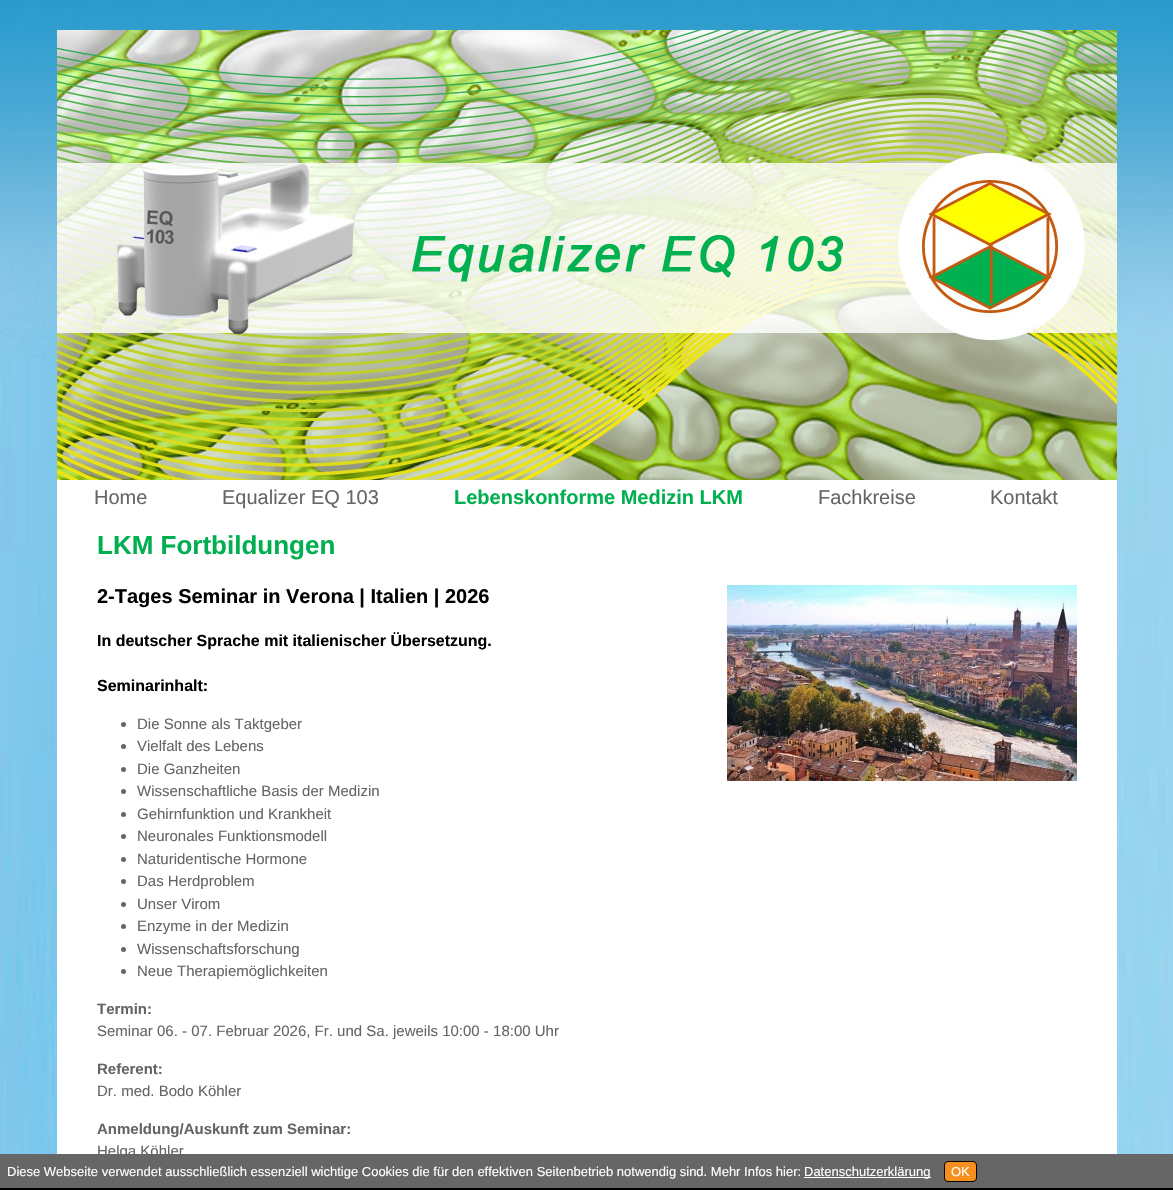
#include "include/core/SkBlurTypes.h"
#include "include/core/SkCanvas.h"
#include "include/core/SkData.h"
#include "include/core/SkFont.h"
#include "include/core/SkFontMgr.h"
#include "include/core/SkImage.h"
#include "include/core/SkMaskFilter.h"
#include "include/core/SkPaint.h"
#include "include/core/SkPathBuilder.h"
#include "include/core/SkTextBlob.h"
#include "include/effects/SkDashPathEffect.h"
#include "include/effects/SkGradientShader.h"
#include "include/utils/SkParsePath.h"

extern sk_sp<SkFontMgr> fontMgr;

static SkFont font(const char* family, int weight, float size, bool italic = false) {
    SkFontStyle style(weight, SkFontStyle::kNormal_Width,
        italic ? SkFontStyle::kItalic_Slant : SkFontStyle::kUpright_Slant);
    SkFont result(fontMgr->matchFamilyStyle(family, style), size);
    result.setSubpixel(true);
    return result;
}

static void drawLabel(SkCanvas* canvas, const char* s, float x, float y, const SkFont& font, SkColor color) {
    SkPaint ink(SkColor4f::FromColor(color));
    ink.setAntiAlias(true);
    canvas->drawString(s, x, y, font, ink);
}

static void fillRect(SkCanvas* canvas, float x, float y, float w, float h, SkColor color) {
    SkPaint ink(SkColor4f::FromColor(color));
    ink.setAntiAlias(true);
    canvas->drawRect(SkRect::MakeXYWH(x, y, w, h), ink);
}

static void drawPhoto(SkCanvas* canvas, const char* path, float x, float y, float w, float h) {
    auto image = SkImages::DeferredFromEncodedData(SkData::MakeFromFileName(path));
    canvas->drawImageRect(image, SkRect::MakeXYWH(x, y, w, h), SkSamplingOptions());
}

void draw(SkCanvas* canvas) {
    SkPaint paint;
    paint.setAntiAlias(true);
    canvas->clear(0xFFFFFFFF);
    drawPhoto(canvas, "assets/img1.png", 0, 0, 1173, 1154);
    drawPhoto(canvas, "assets/img2.png", 57, 30, 1060, 450);
    fillRect(canvas, 57, 480, 1060, 674, 0xFFFFFFFF);
    SkFont font1 = font("Liberation Sans", 400, 20);
    drawLabel(canvas, "Home", 94, 504, font1, 0xFF656565);
    drawLabel(canvas, "Equalizer EQ 103", 222, 504, font1, 0xFF656565);
    SkFont font2 = font("Liberation Sans", 700, 20);
    drawLabel(canvas, "Lebenskonforme Medizin LKM", 454, 504, font2, 0xFF00AF50);
    drawLabel(canvas, "Fachkreise", 818, 504, font1, 0xFF656565);
    drawLabel(canvas, "Kontakt", 990, 504, font1, 0xFF656565);
    SkFont font3 = font("Liberation Sans", 700, 26);
    drawLabel(canvas, "LKM Fortbildungen", 97, 554, font3, 0xFF00AF50);
    drawLabel(canvas, "2-Tages Seminar in Verona | Italien | 2026", 97, 603, font2, 0xFF000000);
    SkFont font4 = font("Liberation Sans", 700, 16);
    drawLabel(canvas, "In deutscher Sprache mit italienischer Übersetzung.", 97, 646, font4, 0xFF000000);
    drawLabel(canvas, "Seminarinhalt:", 97, 691, font4, 0xFF000000);
    paint.setColor(0xFF656565);
    canvas->drawCircle(123.5f, 724.5f, 2.5f, paint);
    SkFont font5 = font("Liberation Sans", 400, 15);
    drawLabel(canvas, "Die Sonne als Taktgeber", 137, 729, font5, 0xFF656565);
    canvas->drawCircle(123.5f, 746.5f, 2.5f, paint);
    drawLabel(canvas, "Vielfalt des Lebens", 137, 751, font5, 0xFF656565);
    canvas->drawCircle(123.5f, 769.5f, 2.5f, paint);
    drawLabel(canvas, "Die Ganzheiten", 137, 774, font5, 0xFF656565);
    canvas->drawCircle(123.5f, 791.5f, 2.5f, paint);
    drawLabel(canvas, "Wissenschaftliche Basis der Medizin", 137, 796, font5, 0xFF656565);
    canvas->drawCircle(123.5f, 814.5f, 2.5f, paint);
    drawLabel(canvas, "Gehirnfunktion und Krankheit", 137, 819, font5, 0xFF656565);
    canvas->drawCircle(123.5f, 836.5f, 2.5f, paint);
    drawLabel(canvas, "Neuronales Funktionsmodell", 137, 841, font5, 0xFF656565);
    canvas->drawCircle(123.5f, 859.5f, 2.5f, paint);
    drawLabel(canvas, "Naturidentische Hormone", 137, 864, font5, 0xFF656565);
    canvas->drawCircle(123.5f, 881.5f, 2.5f, paint);
    drawLabel(canvas, "Das Herdproblem", 137, 886, font5, 0xFF656565);
    canvas->drawCircle(123.5f, 904.5f, 2.5f, paint);
    drawLabel(canvas, "Unser Virom", 137, 909, font5, 0xFF656565);
    canvas->drawCircle(123.5f, 926.5f, 2.5f, paint);
    drawLabel(canvas, "Enzyme in der Medizin", 137, 931, font5, 0xFF656565);
    canvas->drawCircle(123.5f, 949.5f, 2.5f, paint);
    drawLabel(canvas, "Wissenschaftsforschung", 137, 954, font5, 0xFF656565);
    canvas->drawCircle(123.5f, 971.5f, 2.5f, paint);
    drawLabel(canvas, "Neue Therapiemöglichkeiten", 137, 976, font5, 0xFF656565);
    SkFont font6 = font("Liberation Sans", 700, 15);
    drawLabel(canvas, "Termin:", 97, 1014, font6, 0xFF656565);
    drawLabel(canvas, "Seminar 06. - 07. Februar 2026, Fr. und Sa. jeweils 10:00 - 18:00 Uhr", 97, 1036, font5, 0xFF656565);
    drawLabel(canvas, "Referent:", 97, 1074, font6, 0xFF656565);
    drawLabel(canvas, "Dr. med. Bodo Köhler", 97, 1096, font5, 0xFF656565);
    drawLabel(canvas, "Anmeldung/Auskunft zum Seminar:", 97, 1134, font6, 0xFF656565);
    drawLabel(canvas, "Helga Köhler", 97, 1156, font5, 0xFF656565);
    drawPhoto(canvas, "assets/img3.png", 727, 585, 350, 196);
    fillRect(canvas, 0, 1154, 1173, 34, 0xFF666666);
    fillRect(canvas, 0, 1188, 1173, 2, 0xFF000000);
    SkFont font7 = font("Liberation Sans", 400, 13);
    drawLabel(canvas, "Diese Webseite verwendet ausschließlich essenziell wichtige Cookies die für den effektiven Seitenbetrieb notwendig sind. Mehr Infos hier:", 7, 1176, font7, 0xFFFFFFFF);
    fillRect(canvas, 804, 1177, 127, 1, 0xFFFFFFFF);
    drawLabel(canvas, "Datenschutzerklärung", 804, 1176, font7, 0xFFFFFFFF);
    paint.setColor(0xFFF78F1E);
    canvas->drawRoundRect(SkRect::MakeXYWH(944.5f, 1161.5f, 32, 20), 3.5f, 3.5f, paint);
    paint.setStroke(true);
    paint.setStrokeWidth(1);
    paint.setColor(0xFF000000);
    canvas->drawRoundRect(SkRect::MakeXYWH(944.5f, 1161.5f, 32, 20), 3.5f, 3.5f, paint);
    drawLabel(canvas, "OK", 951, 1176, font7, 0xFFFFFFFF);
}
